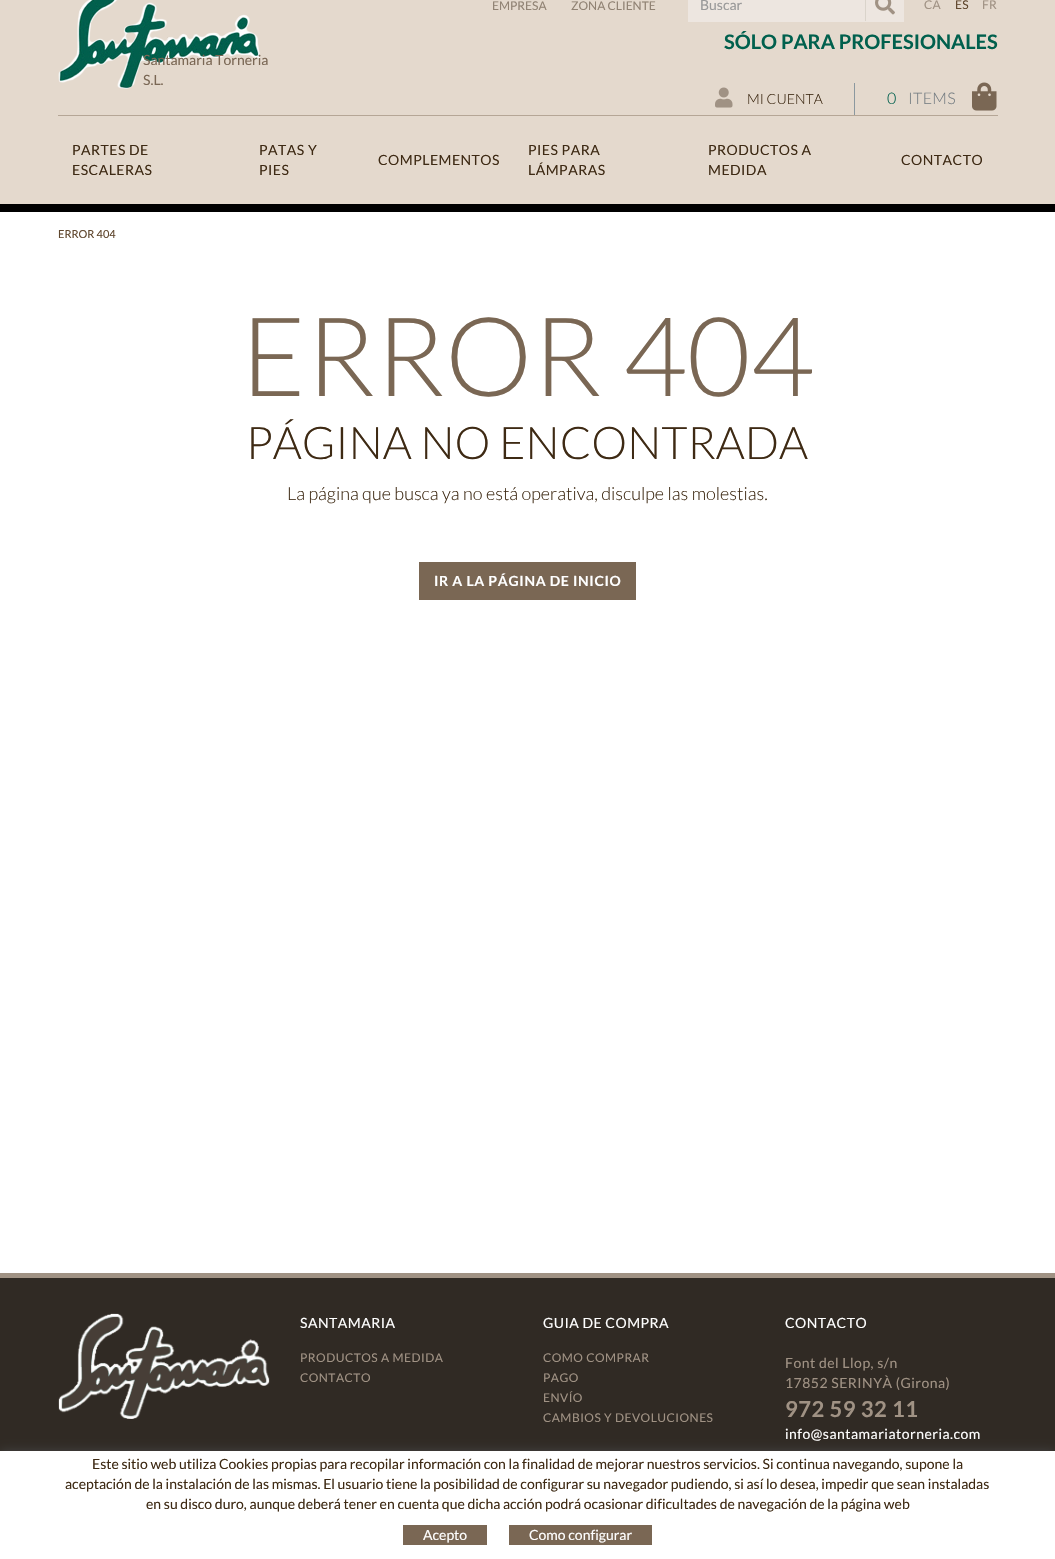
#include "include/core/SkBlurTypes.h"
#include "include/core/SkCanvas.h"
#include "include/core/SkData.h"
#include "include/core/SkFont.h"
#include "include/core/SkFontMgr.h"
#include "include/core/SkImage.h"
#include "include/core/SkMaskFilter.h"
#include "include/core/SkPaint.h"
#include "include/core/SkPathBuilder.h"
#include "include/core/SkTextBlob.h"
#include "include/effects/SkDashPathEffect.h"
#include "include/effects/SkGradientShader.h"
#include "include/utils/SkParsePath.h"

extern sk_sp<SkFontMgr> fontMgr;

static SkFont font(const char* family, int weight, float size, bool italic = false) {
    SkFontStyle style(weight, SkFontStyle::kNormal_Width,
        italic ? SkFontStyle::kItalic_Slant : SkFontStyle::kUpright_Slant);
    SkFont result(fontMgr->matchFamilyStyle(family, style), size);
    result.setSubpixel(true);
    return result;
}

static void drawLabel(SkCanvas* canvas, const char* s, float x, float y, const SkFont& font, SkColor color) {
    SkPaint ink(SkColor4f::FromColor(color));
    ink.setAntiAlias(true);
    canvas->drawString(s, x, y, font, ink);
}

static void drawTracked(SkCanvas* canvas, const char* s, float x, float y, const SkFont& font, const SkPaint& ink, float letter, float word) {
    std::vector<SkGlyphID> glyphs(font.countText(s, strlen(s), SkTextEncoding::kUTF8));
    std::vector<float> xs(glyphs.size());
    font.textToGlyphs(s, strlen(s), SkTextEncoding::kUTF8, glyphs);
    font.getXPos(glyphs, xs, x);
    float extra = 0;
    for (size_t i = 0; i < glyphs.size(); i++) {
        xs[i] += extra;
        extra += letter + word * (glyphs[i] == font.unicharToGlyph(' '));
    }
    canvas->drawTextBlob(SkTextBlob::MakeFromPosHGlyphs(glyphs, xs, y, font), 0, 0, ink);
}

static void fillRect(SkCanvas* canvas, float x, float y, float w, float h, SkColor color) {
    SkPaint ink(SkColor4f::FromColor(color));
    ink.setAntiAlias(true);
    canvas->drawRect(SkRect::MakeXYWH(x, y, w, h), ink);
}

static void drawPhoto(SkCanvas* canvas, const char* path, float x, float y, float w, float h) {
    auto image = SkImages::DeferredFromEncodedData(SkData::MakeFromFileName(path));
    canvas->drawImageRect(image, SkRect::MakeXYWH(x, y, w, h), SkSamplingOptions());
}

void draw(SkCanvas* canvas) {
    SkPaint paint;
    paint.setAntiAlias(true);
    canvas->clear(0xFFFFFFFF);
    fillRect(canvas, 0, 0, 1055, 204, 0xFFE4D9CD);
    drawPhoto(canvas, "assets/img1.png", 58, 0, 202, 89);
    SkFont font1 = font("Lato", 400, 14);
    drawLabel(canvas, "Santamaria Torneria", 143, 65, font1, 0xFF7A6754);
    drawLabel(canvas, "S.L.", 143, 85, font1, 0xFF7A6754);
    SkFont font2 = font("Lato", 400, 12);
    drawLabel(canvas, "EMPRESA", 492, 10, font2, 0xFF908273);
    drawLabel(canvas, "ZONA CLIENTE", 571, 10, font2, 0xFF908273);
    fillRect(canvas, 688, 0, 216, 22, 0xFFEDE6E0);
    fillRect(canvas, 865, 0, 1, 21, 0xFFDAD4CB);
    drawLabel(canvas, "Buscar", 700, 10, font1, 0xFF999999);
    drawPhoto(canvas, "assets/img2.png", 875, 0, 20, 15);
    paint.setColor(0xFFA09284);
    drawTracked(canvas, "CA", 924, 9, font2, paint, 0.25f, 0);
    paint.setColor(0xFF60472E);
    drawTracked(canvas, "ES", 955, 9, font2, paint, 0.25f, 0);
    paint.setColor(0xFFA09284);
    drawTracked(canvas, "FR", 982, 9, font2, paint, 0.25f, 0);
    SkFont font3 = font("Lato", 700, 20);
    drawLabel(canvas, "SÓLO PARA PROFESIONALES", 724, 49, font3, 0xFF00604D);
    fillRect(canvas, 854, 83, 1, 32, 0xFF8B989F);
    drawPhoto(canvas, "assets/img3.png", 715, 87, 18, 21);
    SkFont font4 = font("Lato", 300, 14);
    drawLabel(canvas, "MI CUENTA", 747, 104, font4, 0xFF3E2A14);
    SkFont font5 = font("Lato", 300, 16);
    paint.setColor(0xFF00604D);
    drawTracked(canvas, "0", 887, 104, font5, paint, 0.25f, 0);
    paint.setColor(0xFF767E83);
    drawTracked(canvas, "ITEMS", 908, 104, font5, paint, 0.25f, 0);
    drawPhoto(canvas, "assets/img4.png", 972, 82, 25, 29);
    fillRect(canvas, 0, 204, 1055, 8, 0xFF000000);
    fillRect(canvas, 58, 115, 940, 1, 0xFFB5A696);
    paint.setColor(0xFF3E2A14);
    drawTracked(canvas, "PARTES DE", 72, 155, font1, paint, 0.5f, 0);
    drawTracked(canvas, "ESCALERAS", 72, 175, font1, paint, 0.5f, 0);
    drawTracked(canvas, "PATAS Y", 259, 155, font1, paint, 0.5f, 0);
    drawTracked(canvas, "PIES", 259, 175, font1, paint, 0.5f, 0);
    drawTracked(canvas, "COMPLEMENTOS", 378, 165, font1, paint, 0.5f, 0);
    drawTracked(canvas, "PIES PARA", 528, 155, font1, paint, 0.5f, 0);
    drawTracked(canvas, "LÁMPARAS", 528, 175, font1, paint, 0.5f, 0);
    drawTracked(canvas, "PRODUCTOS A", 708, 155, font1, paint, 0.5f, 0);
    drawTracked(canvas, "MEDIDA", 708, 175, font1, paint, 0.5f, 0);
    drawTracked(canvas, "CONTACTO", 901, 165, font1, paint, 0.5f, 0);
    SkFont font6 = font("Lato", 400, 11);
    drawLabel(canvas, "ERROR 404", 58, 238, font6, 0xFF60472E);
    SkFont font7 = font("Lato", 300, 110);
    drawLabel(canvas, "ERROR 404", 241, 396, font7, 0xFF7A6754);
    SkFont font8 = font("Lato", 300, 45);
    drawLabel(canvas, "PÁGINA NO ENCONTRADA", 246, 459, font8, 0xFF3E2A14);
    SkFont font9 = font("Lato", 300, 18);
    drawLabel(canvas, "La página que busca ya no está operativa, disculpe las molestias.", 287, 500, font9, 0xFF3E2A14);
    fillRect(canvas, 419, 562, 217, 38, 0xFF7A6754);
    SkFont font10 = font("Lato", 700, 14);
    paint.setColor(0xFFFFFFFF);
    drawTracked(canvas, "IR A LA PÁGINA DE INICIO", 434, 586, font10, paint, 0.7f, 0);
    fillRect(canvas, 0, 1278, 1055, 173, 0xFF302A24);
    fillRect(canvas, 0, 1273, 1055, 5, 0xFFA09284);
    drawPhoto(canvas, "assets/img5.png", 58, 1313, 212, 106);
    drawTracked(canvas, "SANTAMARIA", 300, 1328, font1, paint, 0.5f, 0);
    paint.setColor(0xFFA09284);
    drawTracked(canvas, "PRODUCTOS A MEDIDA", 300, 1362, font2, paint, 0.5f, 0);
    drawTracked(canvas, "CONTACTO", 300, 1382, font2, paint, 0.5f, 0);
    paint.setColor(0xFFFFFFFF);
    drawTracked(canvas, "GUIA DE COMPRA", 543, 1328, font1, paint, 0.5f, 0);
    paint.setColor(0xFFA09284);
    drawTracked(canvas, "COMO COMPRAR", 543, 1362, font2, paint, 0.5f, 0);
    drawTracked(canvas, "PAGO", 543, 1382, font2, paint, 0.5f, 0);
    drawTracked(canvas, "ENVÍO", 543, 1402, font2, paint, 0.5f, 0);
    drawTracked(canvas, "CAMBIOS Y DEVOLUCIONES", 543, 1422, font2, paint, 0.5f, 0);
    paint.setColor(0xFFFFFFFF);
    drawTracked(canvas, "CONTACTO", 785, 1328, font1, paint, 0.5f, 0);
    paint.setColor(0xFFA09284);
    drawTracked(canvas, "Font del Llop, s/n", 785, 1368, font1, paint, 0.5f, 0);
    drawTracked(canvas, "17852 SERINYÀ (Girona)", 785, 1388, font1, paint, 0.5f, 0);
    SkFont font11 = font("Lato", 700, 22);
    drawTracked(canvas, "972 59 32 11", 785, 1417, font11, paint, 0.5f, 0);
    paint.setColor(0xFFFFFFFF);
    drawTracked(canvas, "info@santamariatorneria.com", 785, 1439, font1, paint, 0.5f, 0);
    paint.setColor(0xFF444444);
    paint.setMaskFilter(SkMaskFilter::MakeBlur(kNormal_SkBlurStyle, 5));
    canvas->drawRect(SkRect::MakeXYWH(0, 1451, 1055, 108), paint);
    paint.setMaskFilter(nullptr);
    fillRect(canvas, 0, 1451, 1055, 108, 0xFFFFFFFF);
    drawLabel(canvas, "Este sitio web utiliza Cookies propias para recopilar información con la finalidad de mejorar nuestros servicios. Si continua navegando, supone la", 92, 1469, font1, 0xFF3E2A14);
    drawLabel(canvas, "aceptación de la instalación de las mismas. El usuario tiene la posibilidad de configurar su navegador pudiendo, si así lo desea, impedir que sean instaladas", 65, 1489, font1, 0xFF3E2A14);
    drawLabel(canvas, "en su disco duro, aunque deberá tener en cuenta que dicha acción podrá ocasionar dificultades de navegación de la página web", 146, 1509, font1, 0xFF3E2A14);
    fillRect(canvas, 403, 1525, 84, 20, 0xFF7A6754);
    drawLabel(canvas, "Acepto", 423, 1540, font1, 0xFFFFFFFF);
    fillRect(canvas, 509, 1525, 143, 20, 0xFF7A6754);
    drawLabel(canvas, "Como configurar", 529, 1540, font1, 0xFFFFFFFF);
}
